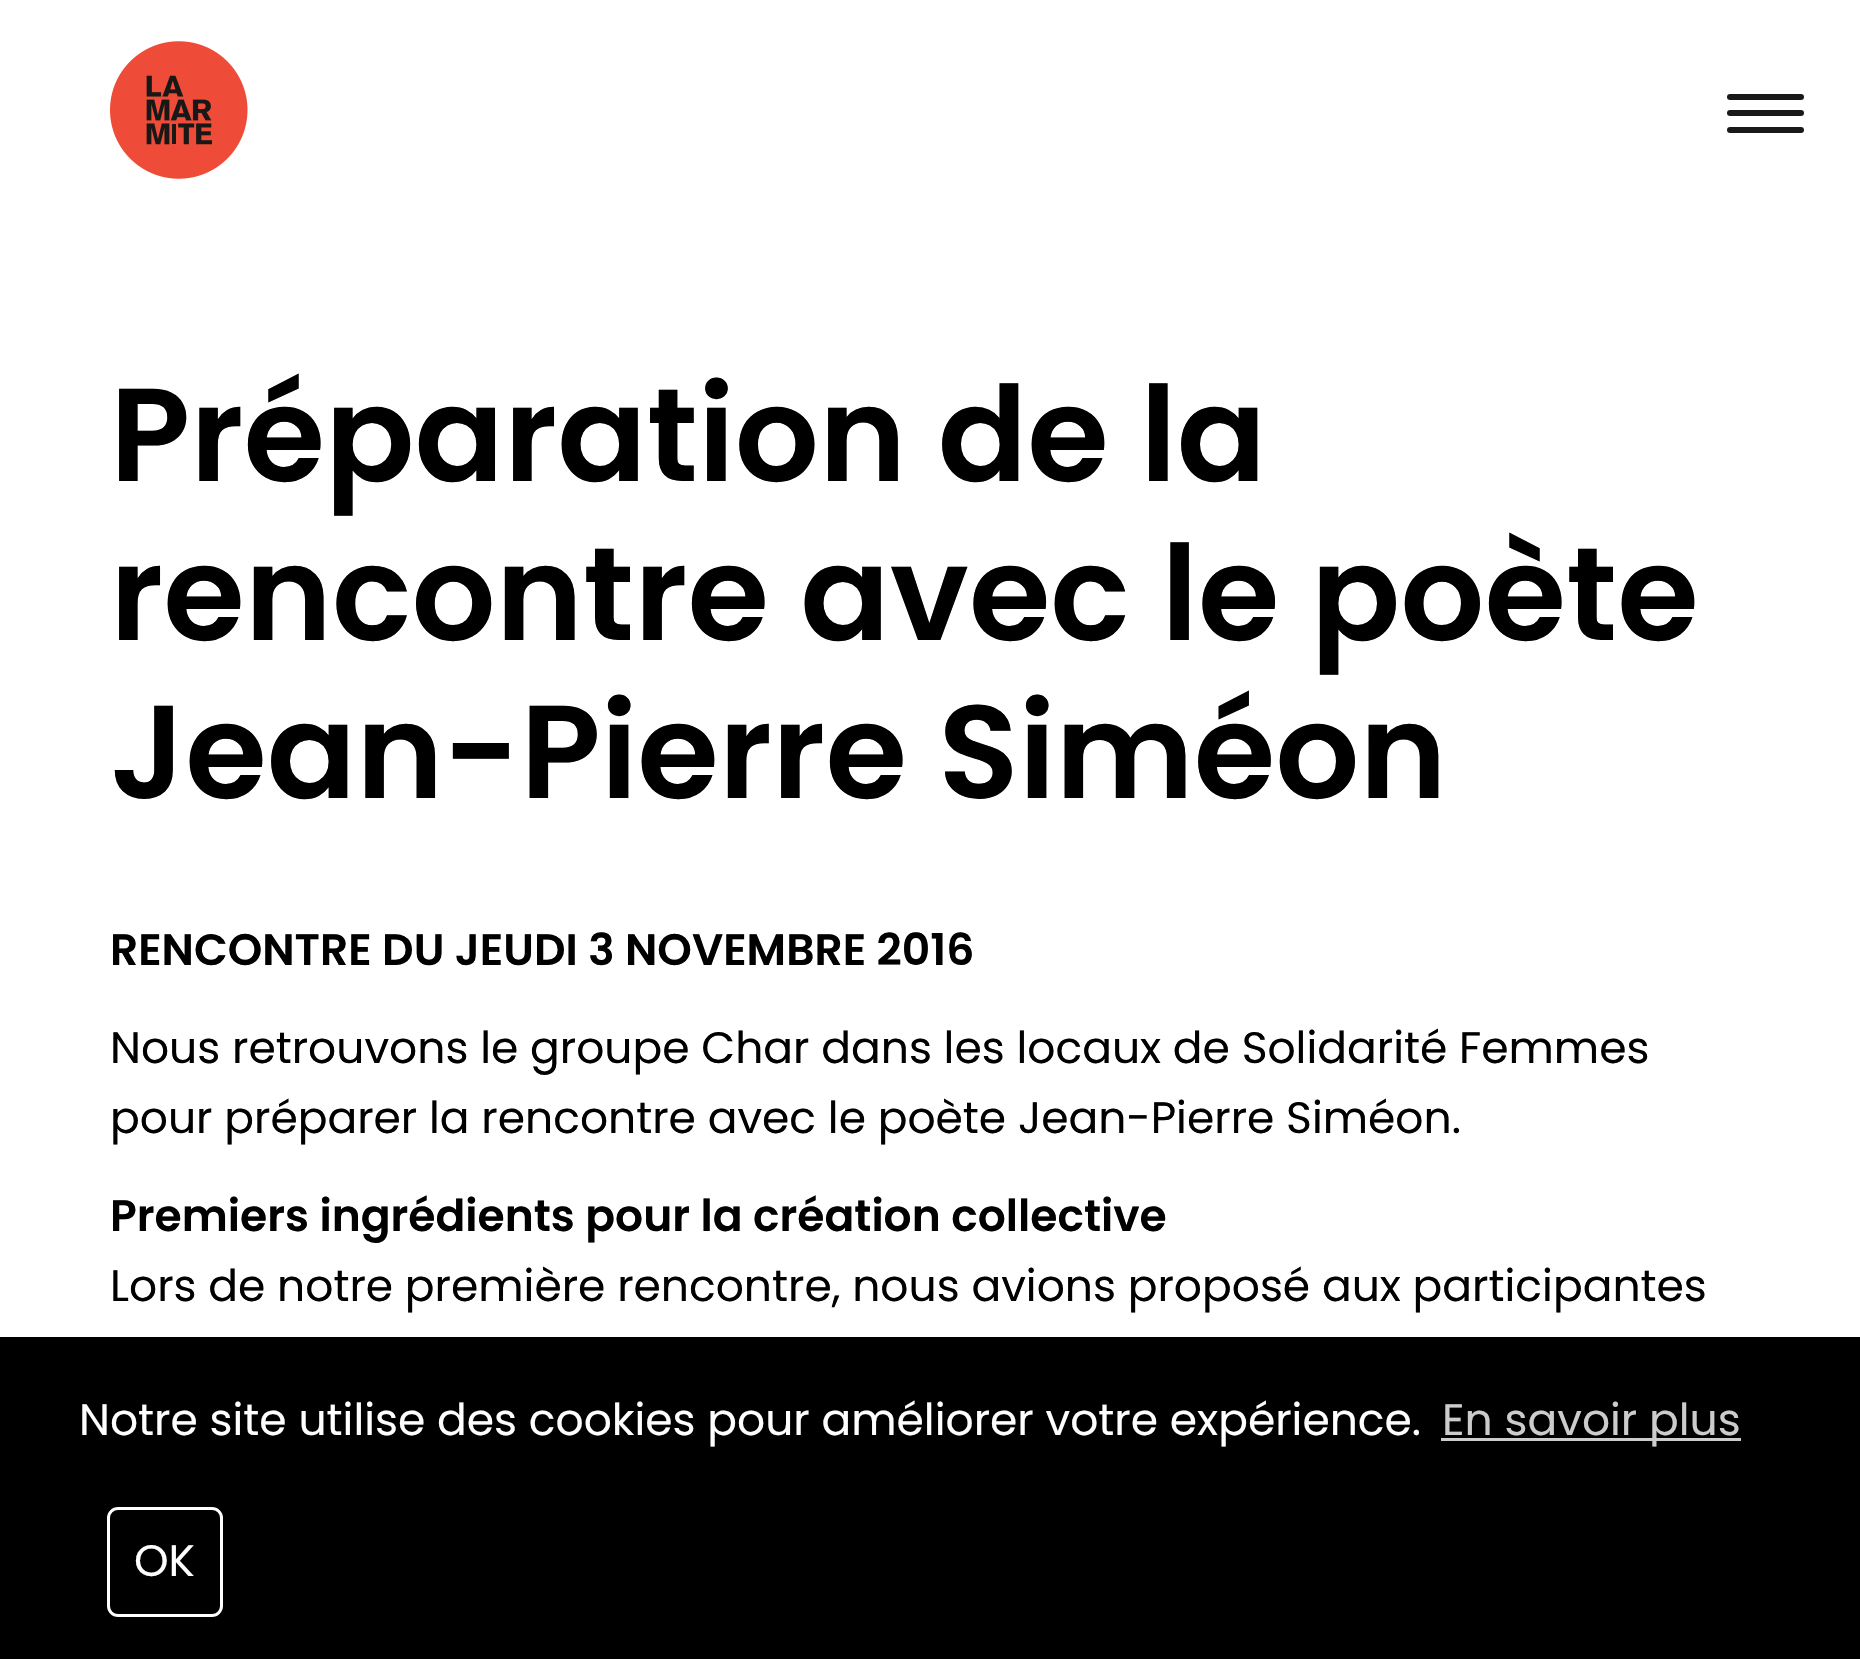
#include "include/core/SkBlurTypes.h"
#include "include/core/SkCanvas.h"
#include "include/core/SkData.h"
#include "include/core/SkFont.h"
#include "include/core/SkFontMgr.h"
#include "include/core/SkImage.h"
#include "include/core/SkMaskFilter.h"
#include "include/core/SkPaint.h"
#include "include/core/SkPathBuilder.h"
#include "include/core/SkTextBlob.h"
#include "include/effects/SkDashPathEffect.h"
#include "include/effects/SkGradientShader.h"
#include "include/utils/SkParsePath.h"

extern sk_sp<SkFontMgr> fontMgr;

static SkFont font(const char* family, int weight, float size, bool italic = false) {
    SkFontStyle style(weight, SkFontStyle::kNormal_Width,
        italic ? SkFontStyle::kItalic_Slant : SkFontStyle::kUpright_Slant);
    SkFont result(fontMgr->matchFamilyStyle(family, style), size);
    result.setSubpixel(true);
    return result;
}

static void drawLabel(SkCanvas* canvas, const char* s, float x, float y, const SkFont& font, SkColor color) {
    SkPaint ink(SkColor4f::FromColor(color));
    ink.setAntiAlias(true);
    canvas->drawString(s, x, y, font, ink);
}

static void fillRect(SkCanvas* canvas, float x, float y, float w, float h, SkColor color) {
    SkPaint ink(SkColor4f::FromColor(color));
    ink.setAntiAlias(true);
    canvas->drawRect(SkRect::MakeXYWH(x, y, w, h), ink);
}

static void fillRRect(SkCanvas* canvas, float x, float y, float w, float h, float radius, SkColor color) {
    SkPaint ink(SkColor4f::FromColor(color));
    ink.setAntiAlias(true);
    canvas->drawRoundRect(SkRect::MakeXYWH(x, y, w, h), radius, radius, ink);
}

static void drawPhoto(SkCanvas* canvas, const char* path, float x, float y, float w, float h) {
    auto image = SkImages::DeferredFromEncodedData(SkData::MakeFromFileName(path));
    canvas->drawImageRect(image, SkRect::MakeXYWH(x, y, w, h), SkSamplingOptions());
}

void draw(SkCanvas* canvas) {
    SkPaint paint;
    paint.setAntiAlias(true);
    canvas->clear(0xFFFFFFFF);
    drawPhoto(canvas, "assets/img1.png", 110, 41, 138, 138);
    fillRRect(canvas, 1727, 110, 77, 6, 3, 0xFF1A1919);
    fillRRect(canvas, 1727, 94, 77, 6, 3, 0xFF1A1919);
    fillRRect(canvas, 1727, 127, 77, 6, 3, 0xFF1A1919);
    SkFont font1 = font("Poppins", 600, 132);
    drawLabel(canvas, "Préparation de la", 110, 481, font1, 0xFF000000);
    drawLabel(canvas, "rencontre avec le poète", 110, 640, font1, 0xFF000000);
    drawLabel(canvas, "Jean-Pierre Siméon", 110, 798, font1, 0xFF000000);
    SkFont font2 = font("Poppins", 600, 44);
    drawLabel(canvas, "RENCONTRE DU JEUDI 3 NOVEMBRE 2016", 110, 965, font2, 0xFF000000);
    SkFont font3 = font("Poppins", 400, 44);
    drawLabel(canvas, "Nous retrouvons le groupe Char dans les locaux de Solidarité Femmes", 110, 1063, font3, 0xFF000000);
    drawLabel(canvas, "pour préparer la rencontre avec le poète Jean-Pierre Siméon.", 110, 1133, font3, 0xFF000000);
    drawLabel(canvas, "Premiers ingrédients pour la création collective", 110, 1231, font2, 0xFF000000);
    drawLabel(canvas, "Lors de notre première rencontre, nous avions proposé aux participantes", 110, 1301, font3, 0xFF000000);
    fillRect(canvas, 0, 1337, 1860, 322, 0xFF000000);
    drawLabel(canvas, "Notre site utilise des cookies pour améliorer votre expérience.", 79, 1435, font3, 0xFFFFFFFF);
    fillRect(canvas, 1441, 1438, 300, 3, 0xFFCCCCCC);
    drawLabel(canvas, "En savoir plus", 1442, 1435, font3, 0xFFCCCCCC);
    paint.setStroke(true);
    paint.setStrokeWidth(3);
    paint.setColor(0xFFFFFFFF);
    canvas->drawRoundRect(SkRect::MakeXYWH(108.5f, 1508.5f, 113, 107), 9.5f, 9.5f, paint);
    drawLabel(canvas, "OK", 134, 1576, font3, 0xFFFFFFFF);
}
